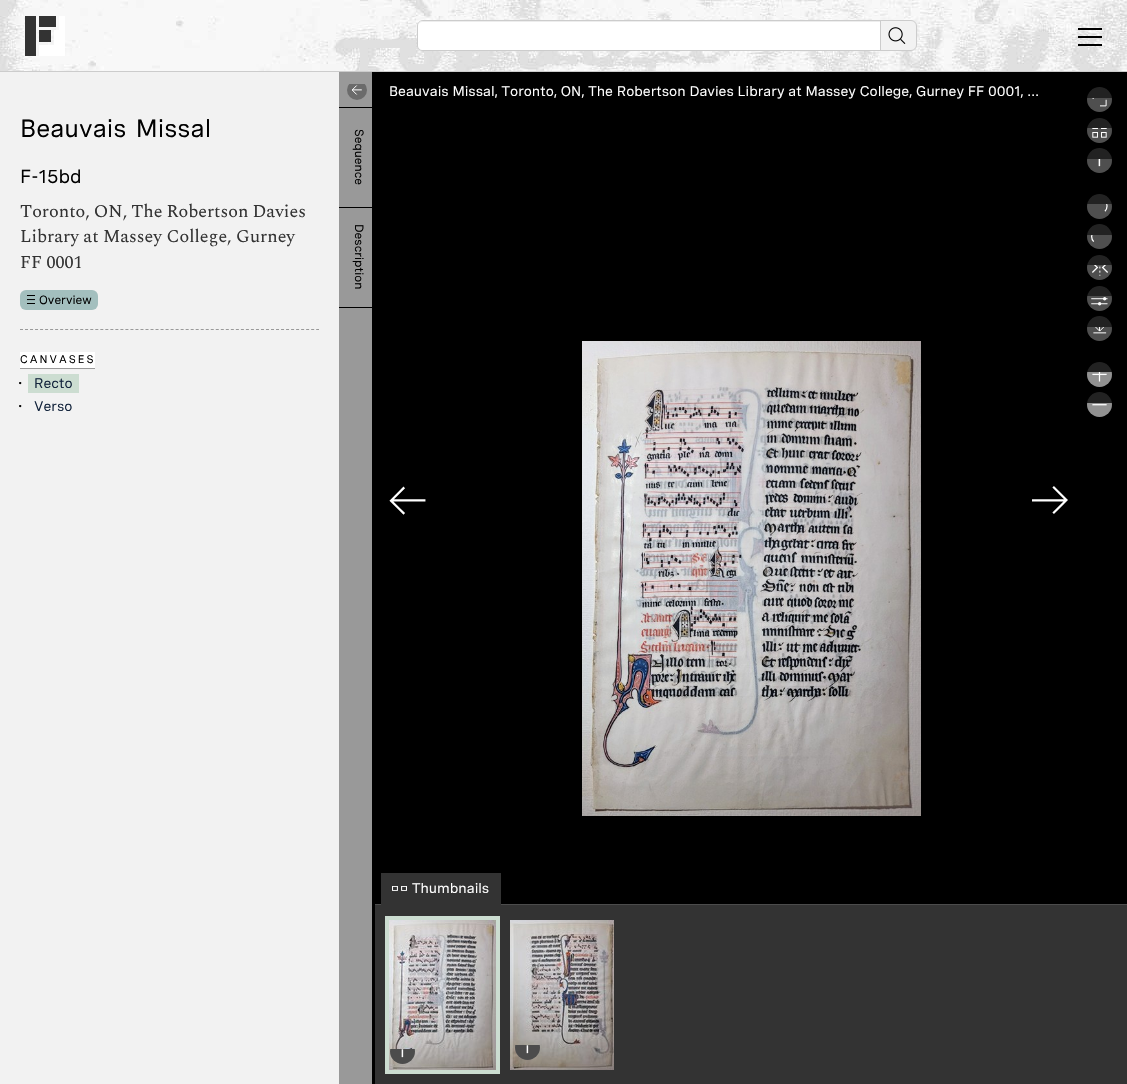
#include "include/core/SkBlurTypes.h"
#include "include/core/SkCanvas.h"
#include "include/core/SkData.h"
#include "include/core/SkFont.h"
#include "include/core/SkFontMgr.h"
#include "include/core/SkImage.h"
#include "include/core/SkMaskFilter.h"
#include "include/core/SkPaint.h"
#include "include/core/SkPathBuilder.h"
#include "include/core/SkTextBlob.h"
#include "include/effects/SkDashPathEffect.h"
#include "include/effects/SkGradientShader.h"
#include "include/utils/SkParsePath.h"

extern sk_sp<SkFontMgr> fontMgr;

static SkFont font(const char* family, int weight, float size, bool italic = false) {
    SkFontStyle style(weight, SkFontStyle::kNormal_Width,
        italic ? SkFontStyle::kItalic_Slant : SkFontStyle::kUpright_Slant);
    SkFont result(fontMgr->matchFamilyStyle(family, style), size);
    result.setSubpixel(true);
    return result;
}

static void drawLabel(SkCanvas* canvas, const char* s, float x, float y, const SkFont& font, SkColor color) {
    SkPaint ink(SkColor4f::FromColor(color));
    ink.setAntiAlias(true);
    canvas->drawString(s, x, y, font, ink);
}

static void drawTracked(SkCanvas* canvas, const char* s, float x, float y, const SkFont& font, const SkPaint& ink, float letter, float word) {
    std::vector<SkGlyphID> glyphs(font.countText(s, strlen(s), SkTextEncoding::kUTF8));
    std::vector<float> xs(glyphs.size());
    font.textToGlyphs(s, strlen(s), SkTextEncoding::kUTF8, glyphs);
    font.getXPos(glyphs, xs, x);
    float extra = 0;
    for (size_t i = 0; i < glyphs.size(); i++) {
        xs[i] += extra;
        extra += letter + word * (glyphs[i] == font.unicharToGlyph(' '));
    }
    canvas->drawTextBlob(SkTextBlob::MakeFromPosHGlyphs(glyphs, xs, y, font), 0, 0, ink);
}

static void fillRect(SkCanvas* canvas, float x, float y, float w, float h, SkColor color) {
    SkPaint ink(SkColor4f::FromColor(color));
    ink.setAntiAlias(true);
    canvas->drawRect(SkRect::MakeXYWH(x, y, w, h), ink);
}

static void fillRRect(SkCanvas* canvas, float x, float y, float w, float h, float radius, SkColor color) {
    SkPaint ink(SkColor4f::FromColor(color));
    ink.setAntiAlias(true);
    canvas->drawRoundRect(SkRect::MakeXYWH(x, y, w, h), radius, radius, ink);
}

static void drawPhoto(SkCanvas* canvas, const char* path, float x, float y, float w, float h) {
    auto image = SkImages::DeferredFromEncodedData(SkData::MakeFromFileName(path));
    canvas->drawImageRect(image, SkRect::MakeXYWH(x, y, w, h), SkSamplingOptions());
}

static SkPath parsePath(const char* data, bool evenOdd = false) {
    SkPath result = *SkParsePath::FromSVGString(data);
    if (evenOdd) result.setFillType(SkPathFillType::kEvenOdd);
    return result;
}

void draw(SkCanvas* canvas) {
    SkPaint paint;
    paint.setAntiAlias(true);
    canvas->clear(0xFF000000);
    drawPhoto(canvas, "assets/img1.png", 0, 0, 1127, 71);
    fillRect(canvas, 0, 71, 1127, 1, 0xFFCCCCCC);
    fillRect(canvas, 39, 16, 17, 11, 0xFF333333);
    fillRect(canvas, 39, 30, 12, 12, 0xFF333333);
    fillRect(canvas, 25, 16, 11, 40, 0xFF333333);
    paint.setColor(0xFFFFFFFF);
    canvas->drawPath(parsePath("M59 16V30H54V45H39V56H65V16Z"), paint);
    canvas->save();
    canvas->clipPath(parsePath("M423 20H911C914.5 20 917 22.5 917 26V45C917 48.5 914.5 51 911 51H423C419.5 51 417 48.5 417 45V26C417 22.5 419.5 20 423 20Z"), true);
    fillRect(canvas, 881, 20, 35, 31, 0xFFF2F2F2);
    canvas->restore();
    paint.setStroke(true);
    paint.setStrokeWidth(1);
    paint.setColor(0xFFCCCCCC);
    canvas->drawRoundRect(SkRect::MakeXYWH(417.5f, 20.5f, 499, 30), 5.5f, 5.5f, paint);
    paint.setStroke(false);
    paint.setColor(0xFFFFFFFF);
    canvas->drawPath(parsePath("M422 21H881V50H422C420 50 418 48 418 46V25C418 23 420 21 422 21Z"), paint);
    paint.setColor(0x12000000);
    canvas->drawPath(parsePath("M422 22H880V21H422C420 21 418 23 418 25V26C418 24 420 22 422 22Z"), paint);
    fillRect(canvas, 880, 21, 1, 29, 0xFFCCCCCC);
    drawPhoto(canvas, "assets/img2.png", 888, 27, 18, 17);
    fillRect(canvas, 1078, 28, 24, 2, 0xFF000000);
    fillRect(canvas, 1078, 36, 24, 2, 0xFF000000);
    fillRect(canvas, 1078, 44, 24, 2, 0xFF000000);
    fillRect(canvas, 339, 72, 33, 1012, 0xFF999999);
    fillRect(canvas, 0, 72, 339, 1012, 0xFFF2F2F2);
    SkFont font1 = font("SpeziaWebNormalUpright", 400, 25);
    paint.setColor(0xFF000000);
    drawTracked(canvas, "Beauvais Missal", 20, 137, font1, paint, 0, 3);
    SkFont font2 = font("SpeziaWebNormalUpright", 400, 19);
    drawLabel(canvas, "F-15bd", 20, 183, font2, 0xFF000000);
    SkFont font3 = font("Spectral", 400, 18);
    paint.setColor(0xFF333333);
    drawTracked(canvas, "Toronto, ON, The Robertson Davies", 20, 217, font3, paint, 0, -0.5f);
    drawLabel(canvas, "Library at Massey College, Gurney", 20, 242, font3, 0xFF333333);
    drawLabel(canvas, "FF 0001", 20, 268, font3, 0xFF333333);
    fillRRect(canvas, 20, 290, 78, 20, 6, 0xFFA3BFBE);
    drawPhoto(canvas, "assets/img3.png", 27, 295, 8, 9);
    SkFont font4 = font("SpeziaWebNormalUpright", 400, 12);
    drawLabel(canvas, "Overview", 39, 304, font4, 0xFF000000);
    paint.setStroke(true);
    paint.setColor(0xFF999999);
    paint.setPathEffect(SkDashPathEffect::Make({{3, 2.02f}}, 0));
    canvas->drawPath(parsePath("M20 329.5H319"), paint);
    paint.setPathEffect(nullptr);
    fillRect(canvas, 20, 352, 75, 16, 0xFFFFFFFF);
    fillRect(canvas, 20, 368, 75, 1, 0xFF999999);
    SkFont font5 = font("SpeziaWebNormalUpright", 400, 11);
    paint.setStroke(false);
    paint.setColor(0xFF000000);
    drawTracked(canvas, "CANVASES", 20, 363, font5, paint, 2, 0);
    SkFont font6 = font("WenQuanYi Zen Hei", 500, 14);
    drawLabel(canvas, "・", 13, 388, font6, 0xFF000000);
    fillRect(canvas, 28, 374, 51, 19, 0xFFCCDDD1);
    SkFont font7 = font("SpeziaWebNormalUpright", 400, 14);
    drawLabel(canvas, "Recto", 34, 388, font7, 0xFF14253D);
    drawLabel(canvas, "・", 13, 411, font6, 0xFF000000);
    drawLabel(canvas, "Verso", 34, 411, font7, 0xFF14253D);
    fillRect(canvas, 339, 107, 36, 1, 0xFF000000);
    drawPhoto(canvas, "assets/img4.png", 347, 84, 20, 16);
    fillRect(canvas, 339, 207, 36, 1, 0xFF000000);
    canvas->save();
    canvas->rotate(90, 355, 129);
    drawLabel(canvas, "Sequence", 355, 129, font4, 0xFF000000);
    canvas->restore();
    fillRect(canvas, 339, 307, 36, 1, 0xFF000000);
    canvas->save();
    canvas->rotate(90, 355, 224);
    drawLabel(canvas, "Description", 355, 224, font4, 0xFF000000);
    canvas->restore();
    paint.setColor(0xFFFFFFFF);
    drawTracked(canvas, "Beauvais Missal, Toronto, ON, The Robertson Davies Library at Massey College, Gurney FF 0001, …", 389, 96, font7, paint, 0, 0.25f);
    paint.setColor(0xFF222222);
    canvas->drawCircle(1099.5f, 99.5f, 12.5f, paint);
    drawPhoto(canvas, "assets/img5.png", 1087, 98, 25, 14);
    canvas->drawCircle(1099.5f, 130.5f, 12.5f, paint);
    drawPhoto(canvas, "assets/img6.png", 1087, 128, 25, 15);
    canvas->drawCircle(1099.5f, 160.5f, 12.5f, paint);
    drawPhoto(canvas, "assets/img7.png", 1087, 159, 25, 14);
    canvas->drawCircle(1099.5f, 206.5f, 12.5f, paint);
    drawPhoto(canvas, "assets/img8.png", 1087, 204, 25, 15);
    canvas->drawCircle(1099.5f, 236.5f, 12.5f, paint);
    drawPhoto(canvas, "assets/img9.png", 1087, 235, 25, 14);
    canvas->drawCircle(1099.5f, 267.5f, 12.5f, paint);
    drawPhoto(canvas, "assets/img10.png", 1087, 265, 25, 15);
    canvas->drawCircle(1099.5f, 298.5f, 12.5f, paint);
    drawPhoto(canvas, "assets/img11.png", 1087, 296, 25, 15);
    canvas->drawCircle(1099.5f, 328.5f, 12.5f, paint);
    drawPhoto(canvas, "assets/img12.png", 1087, 327, 25, 14);
    canvas->drawCircle(1099.5f, 374.5f, 12.5f, paint);
    drawPhoto(canvas, "assets/img13.png", 1087, 372, 25, 15);
    canvas->drawCircle(1099.5f, 404.5f, 12.5f, paint);
    drawPhoto(canvas, "assets/img14.png", 1087, 403, 25, 14);
    drawPhoto(canvas, "assets/img15.png", 389, 486, 37, 29);
    drawPhoto(canvas, "assets/img16.png", 582, 341, 339, 475);
    drawPhoto(canvas, "assets/img17.png", 1032, 486, 36, 28);
    fillRect(canvas, 375, 904, 752, 1, 0xFF4C4C4C);
    fillRect(canvas, 381, 873, 120, 32, 0xFF333333);
    drawPhoto(canvas, "assets/img18.png", 392, 886, 15, 5);
    drawLabel(canvas, "Thumbnails", 412, 893, font7, 0xFFFFFFFF);
    fillRect(canvas, 375, 905, 752, 179, 0xFF333333);
    drawPhoto(canvas, "assets/img19.png", 389, 920, 107, 150);
    paint.setStroke(true);
    paint.setStrokeWidth(4);
    paint.setColor(0xFFCCDDD1);
    canvas->drawRect(SkRect::MakeXYWH(387, 918, 111, 154), paint);
    drawPhoto(canvas, "assets/img20.png", 390, 1049, 25, 15);
    drawPhoto(canvas, "assets/img21.png", 510, 920, 104, 150);
    drawPhoto(canvas, "assets/img22.png", 515, 1045, 25, 15);
}
